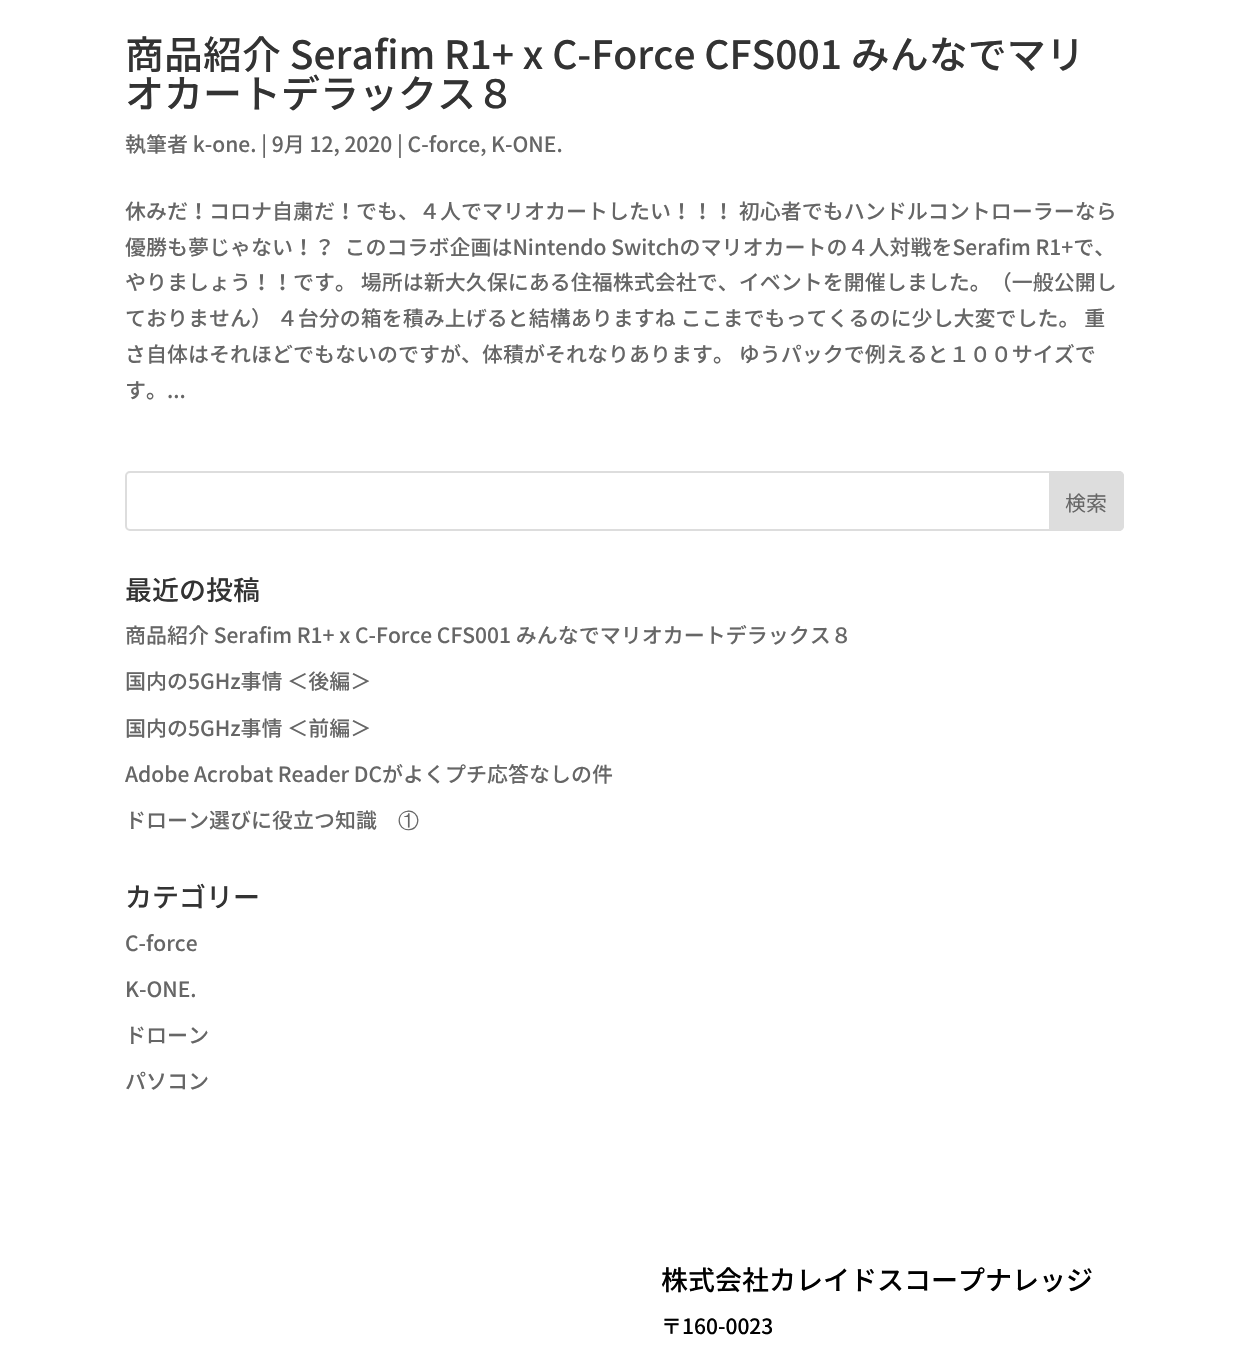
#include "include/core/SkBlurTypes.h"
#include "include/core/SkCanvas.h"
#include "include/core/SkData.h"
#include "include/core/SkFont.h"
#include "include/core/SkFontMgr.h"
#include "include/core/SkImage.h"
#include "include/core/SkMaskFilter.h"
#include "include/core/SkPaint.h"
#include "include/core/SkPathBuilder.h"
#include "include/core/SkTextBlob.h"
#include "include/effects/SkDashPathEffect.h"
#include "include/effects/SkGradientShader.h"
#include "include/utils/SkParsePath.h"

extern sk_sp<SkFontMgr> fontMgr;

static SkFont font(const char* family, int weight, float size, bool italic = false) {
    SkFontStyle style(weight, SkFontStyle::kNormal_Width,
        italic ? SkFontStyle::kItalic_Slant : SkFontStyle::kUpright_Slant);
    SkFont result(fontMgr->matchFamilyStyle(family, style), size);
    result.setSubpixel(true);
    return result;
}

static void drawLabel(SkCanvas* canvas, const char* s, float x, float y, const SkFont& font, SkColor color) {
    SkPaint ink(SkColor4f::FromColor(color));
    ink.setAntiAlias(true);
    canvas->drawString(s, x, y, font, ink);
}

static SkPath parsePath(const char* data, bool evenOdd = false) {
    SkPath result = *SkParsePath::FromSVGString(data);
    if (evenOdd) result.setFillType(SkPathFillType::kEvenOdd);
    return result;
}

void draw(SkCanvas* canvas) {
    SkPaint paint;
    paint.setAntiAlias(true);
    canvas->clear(0xFFFFFFFF);
    SkFont font1 = font("Noto Sans JP", 500, 39);
    drawLabel(canvas, "商品紹介 Serafim R1+ x C-Force CFS001 みんなでマリ", 125, 69, font1, 0xFF333333);
    drawLabel(canvas, "オカートデラックス８", 125, 108, font1, 0xFF333333);
    SkFont font2 = font("Noto Sans JP", 500, 21);
    drawLabel(canvas, "執筆者 k-one. | 9月 12, 2020 | C-force, K-ONE.", 125, 152, font2, 0xFF666666);
    drawLabel(canvas, "休みだ！コロナ自粛だ！でも、４人でマリオカートしたい！！！ 初心者でもハンドルコントローラーなら", 125, 219, font2, 0xFF666666);
    drawLabel(canvas, "優勝も夢じゃない！？  このコラボ企画はNintendo Switchのマリオカートの４人対戦をSerafim R1+で、", 125, 255, font2, 0xFF666666);
    drawLabel(canvas, "やりましょう！！です。 場所は新大久保にある住福株式会社で、イベントを開催しました。（一般公開し", 125, 290, font2, 0xFF666666);
    drawLabel(canvas, "ておりません） ４台分の箱を積み上げると結構ありますね ここまでもってくるのに少し大変でした。 重", 125, 326, font2, 0xFF666666);
    drawLabel(canvas, "さ自体はそれほどでもないのですが、体積がそれなりあります。 ゆうパックで例えると１００サイズで", 125, 362, font2, 0xFF666666);
    drawLabel(canvas, "す。...", 125, 398, font2, 0xFF666666);
    paint.setStroke(true);
    paint.setStrokeWidth(2);
    paint.setColor(0xFFDDDDDD);
    canvas->drawRoundRect(SkRect::MakeXYWH(126, 472, 997, 58), 4, 4, paint);
    paint.setStroke(false);
    canvas->drawPath(parsePath("M1050 472H1119C1121 472 1123 474 1123 476V526C1123 528 1121 530 1119 530H1050Z"), paint);
    paint.setStroke(true);
    canvas->drawPath(parsePath("M1050 472H1119C1121 472 1123 474 1123 476V526C1123 528 1121 530 1119 530H1050Z"), paint);
    SkFont font3 = font("Noto Sans JP", 400, 21);
    drawLabel(canvas, "検索", 1065, 511, font3, 0xFF666666);
    SkFont font4 = font("Noto Sans JP", 500, 27);
    drawLabel(canvas, "最近の投稿", 125, 600, font4, 0xFF333333);
    drawLabel(canvas, "商品紹介 Serafim R1+ x C-Force CFS001 みんなでマリオカートデラックス８", 125, 643, font2, 0xFF666666);
    drawLabel(canvas, "国内の5GHz事情 ＜後編＞", 125, 689, font2, 0xFF666666);
    drawLabel(canvas, "国内の5GHz事情 ＜前編＞", 125, 736, font2, 0xFF666666);
    drawLabel(canvas, "Adobe Acrobat Reader DCがよくプチ応答なしの件", 125, 782, font2, 0xFF666666);
    drawLabel(canvas, "ドローン選びに役立つ知識", 125, 828, font2, 0xFF666666);
    SkFont font5 = font("WenQuanYi Zen Hei", 500, 21);
    drawLabel(canvas, "①", 398, 828, font5, 0xFF666666);
    drawLabel(canvas, "カテゴリー", 125, 907, font4, 0xFF333333);
    drawLabel(canvas, "C-force", 125, 951, font2, 0xFF666666);
    drawLabel(canvas, "K-ONE.", 125, 997, font2, 0xFF666666);
    drawLabel(canvas, "ドローン", 125, 1043, font2, 0xFF666666);
    drawLabel(canvas, "パソコン", 125, 1089, font2, 0xFF666666);
    drawLabel(canvas, "株式会社カレイドスコープナレッジ", 661, 1290, font4, 0xFF000000);
    drawLabel(canvas, "〒160-0023", 661, 1334, font2, 0xFF000000);
}
